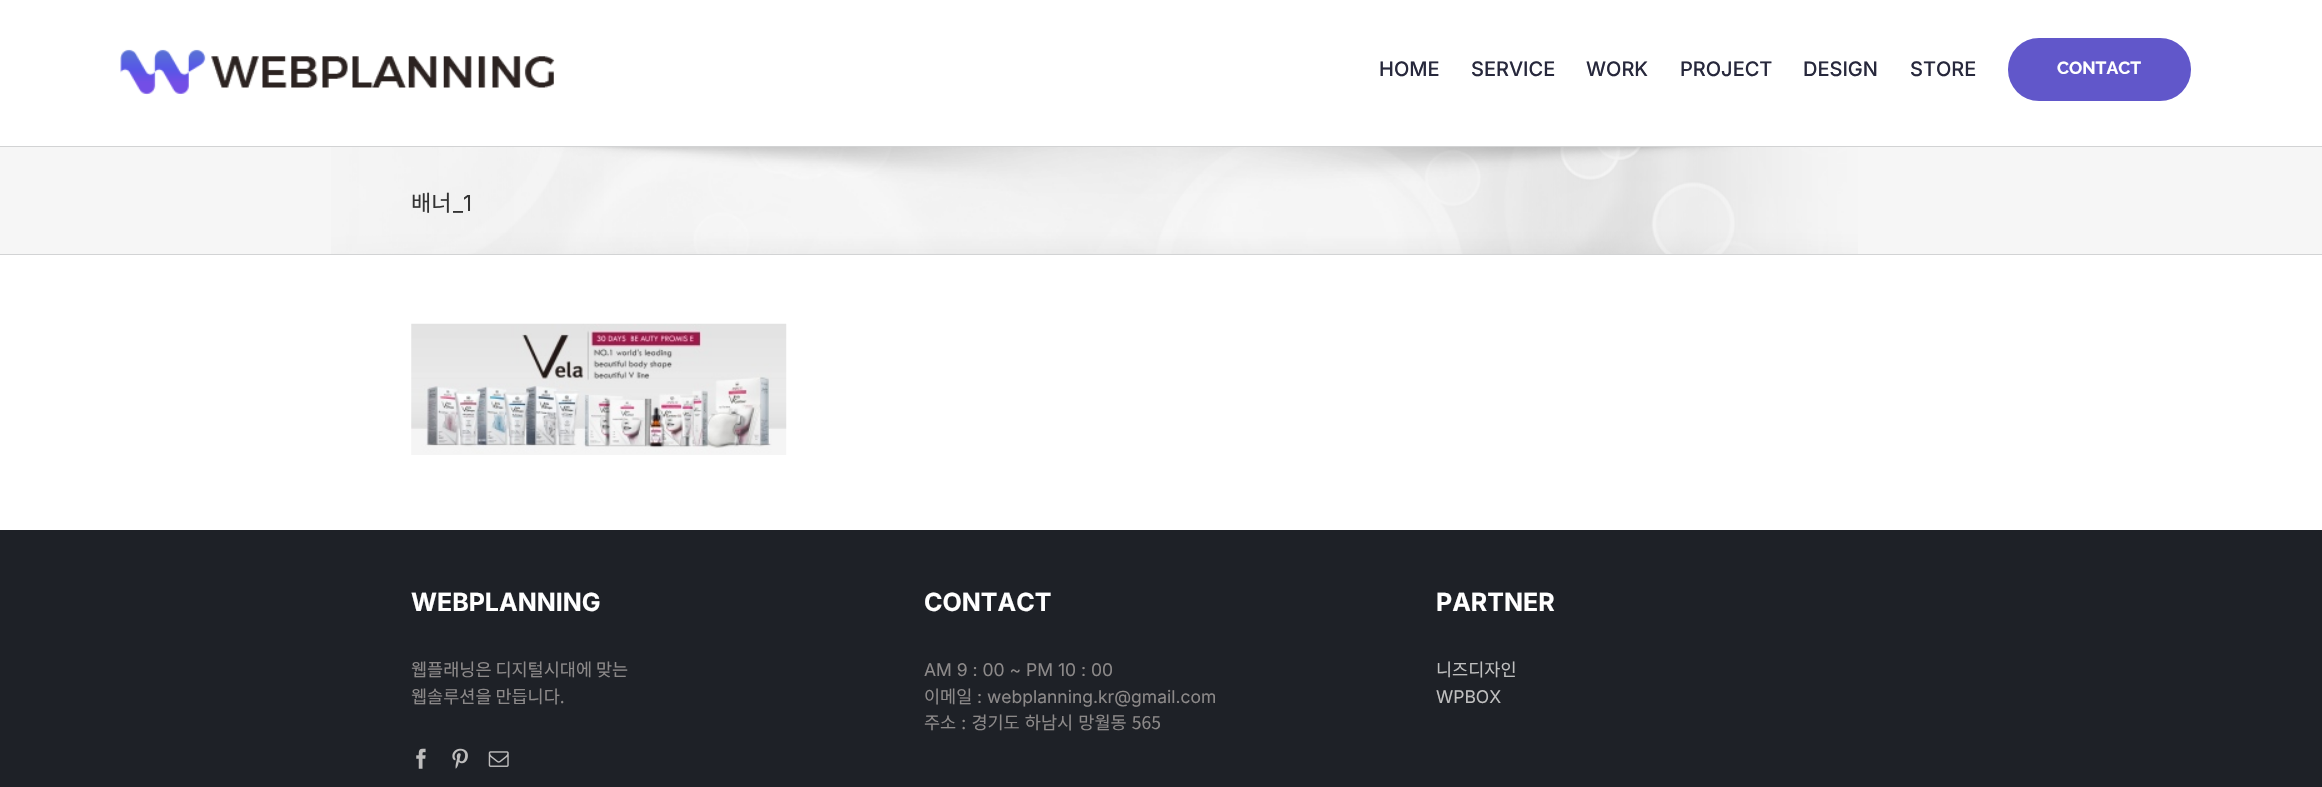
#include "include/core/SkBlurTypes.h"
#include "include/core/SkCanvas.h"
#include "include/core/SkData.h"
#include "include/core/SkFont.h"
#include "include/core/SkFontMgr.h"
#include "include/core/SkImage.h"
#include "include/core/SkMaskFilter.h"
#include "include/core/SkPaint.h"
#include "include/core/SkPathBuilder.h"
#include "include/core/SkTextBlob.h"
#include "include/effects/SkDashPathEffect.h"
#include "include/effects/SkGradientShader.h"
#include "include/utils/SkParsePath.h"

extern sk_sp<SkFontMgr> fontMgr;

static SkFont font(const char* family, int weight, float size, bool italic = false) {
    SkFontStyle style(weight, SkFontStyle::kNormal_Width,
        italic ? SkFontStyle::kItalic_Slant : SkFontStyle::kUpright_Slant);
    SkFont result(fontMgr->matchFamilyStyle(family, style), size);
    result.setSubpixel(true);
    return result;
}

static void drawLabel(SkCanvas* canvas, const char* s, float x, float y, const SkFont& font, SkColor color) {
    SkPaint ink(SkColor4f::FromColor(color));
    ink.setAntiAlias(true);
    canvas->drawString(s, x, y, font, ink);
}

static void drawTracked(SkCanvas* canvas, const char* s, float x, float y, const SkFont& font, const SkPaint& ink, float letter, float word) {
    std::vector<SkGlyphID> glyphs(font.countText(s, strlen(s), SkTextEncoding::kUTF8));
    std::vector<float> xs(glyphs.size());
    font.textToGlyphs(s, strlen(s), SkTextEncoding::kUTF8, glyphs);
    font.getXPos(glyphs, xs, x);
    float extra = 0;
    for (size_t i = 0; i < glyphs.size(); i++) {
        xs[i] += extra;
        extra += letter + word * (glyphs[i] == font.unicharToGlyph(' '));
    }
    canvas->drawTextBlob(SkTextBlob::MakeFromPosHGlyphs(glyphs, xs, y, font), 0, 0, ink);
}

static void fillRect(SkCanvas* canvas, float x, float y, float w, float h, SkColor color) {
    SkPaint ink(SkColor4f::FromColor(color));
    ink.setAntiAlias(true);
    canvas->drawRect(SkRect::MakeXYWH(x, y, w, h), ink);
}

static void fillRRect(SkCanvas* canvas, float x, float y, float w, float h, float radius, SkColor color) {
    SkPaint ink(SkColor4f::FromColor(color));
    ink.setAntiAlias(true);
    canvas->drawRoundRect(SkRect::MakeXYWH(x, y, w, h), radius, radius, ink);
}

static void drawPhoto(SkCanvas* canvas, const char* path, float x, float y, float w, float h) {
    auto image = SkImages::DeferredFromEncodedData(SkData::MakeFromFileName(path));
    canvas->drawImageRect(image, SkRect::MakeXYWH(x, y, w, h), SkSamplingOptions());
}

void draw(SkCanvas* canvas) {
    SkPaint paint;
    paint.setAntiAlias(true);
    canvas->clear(0xFFFFFFFF);
    drawPhoto(canvas, "assets/img1.png", 120, 49, 435, 46);
    SkFont font1 = font("Inter", 500, 20);
    drawLabel(canvas, "HOME", 1379, 76, font1, 0xFF27283C);
    drawLabel(canvas, "SERVICE", 1471, 76, font1, 0xFF27283C);
    drawLabel(canvas, "WORK", 1586, 76, font1, 0xFF27283C);
    drawLabel(canvas, "PROJECT", 1680, 76, font1, 0xFF27283C);
    drawLabel(canvas, "DESIGN", 1803, 76, font1, 0xFF27283C);
    drawLabel(canvas, "STORE", 1910, 76, font1, 0xFF27283C);
    fillRRect(canvas, 2008, 38, 183, 63, 31, 0xFF6157CA);
    SkFont font2 = font("Raleway", 700, 17.5f);
    drawLabel(canvas, "CONTACT", 2057, 74, font2, 0xFFFFFFFF);
    fillRect(canvas, 0, 147, 2322, 107, 0xFFF6F6F6);
    drawPhoto(canvas, "assets/img2.png", 331, 147, 1527, 107);
    fillRect(canvas, 0, 146, 2322, 1, 0xFFD2D3D4);
    fillRect(canvas, 0, 254, 2322, 1, 0xFFD2D3D4);
    SkFont font3 = font("Noto Sans KR", 400, 22);
    drawLabel(canvas, "배너", 411, 211, font3, 0xFF333333);
    SkFont font4 = font("Inter", 400, 22);
    drawLabel(canvas, "_1", 453, 211, font4, 0xFF333333);
    drawPhoto(canvas, "assets/img3.png", 411, 323, 376, 132);
    fillRect(canvas, 0, 530, 2322, 257, 0xFF1E2127);
    SkFont font5 = font("Inter", 700, 25);
    drawLabel(canvas, "WEBPLANNING", 411, 611, font5, 0xFFFFFFFF);
    SkFont font6 = font("Noto Sans KR", 400, 17.5f);
    drawLabel(canvas, "웹플래닝은 디지털시대에 맞는", 411, 676, font6, 0xFF8C8989);
    drawLabel(canvas, "웹솔루션을 만듭니다.", 411, 703, font6, 0xFF8C8989);
    drawPhoto(canvas, "assets/img4.png", 416, 748, 10, 21);
    drawPhoto(canvas, "assets/img5.png", 452, 748, 16, 21);
    drawPhoto(canvas, "assets/img6.png", 488, 751, 21, 16);
    drawLabel(canvas, "CONTACT", 924, 611, font5, 0xFFFFFFFF);
    SkFont font7 = font("Inter", 400, 17.5f);
    drawLabel(canvas, "AM 9 : 00 ~ PM 10 : 00", 924, 676, font7, 0xFF8C8989);
    drawLabel(canvas, "이메일", 924, 703, font6, 0xFF8C8989);
    drawLabel(canvas, ": webplanning.kr@gmail.com", 977, 703, font7, 0xFF8C8989);
    paint.setColor(0xFF8C8989);
    drawTracked(canvas, "주소 : 경기도 하남시 망월동 565", 924, 729, font6, paint, 0, 1.25f);
    drawLabel(canvas, "PARTNER", 1436, 611, font5, 0xFFFFFFFF);
    drawLabel(canvas, "니즈디자인", 1436, 676, font6, 0xFFBFBFBF);
    drawLabel(canvas, "WPBOX", 1436, 703, font7, 0xFFBFBFBF);
}
